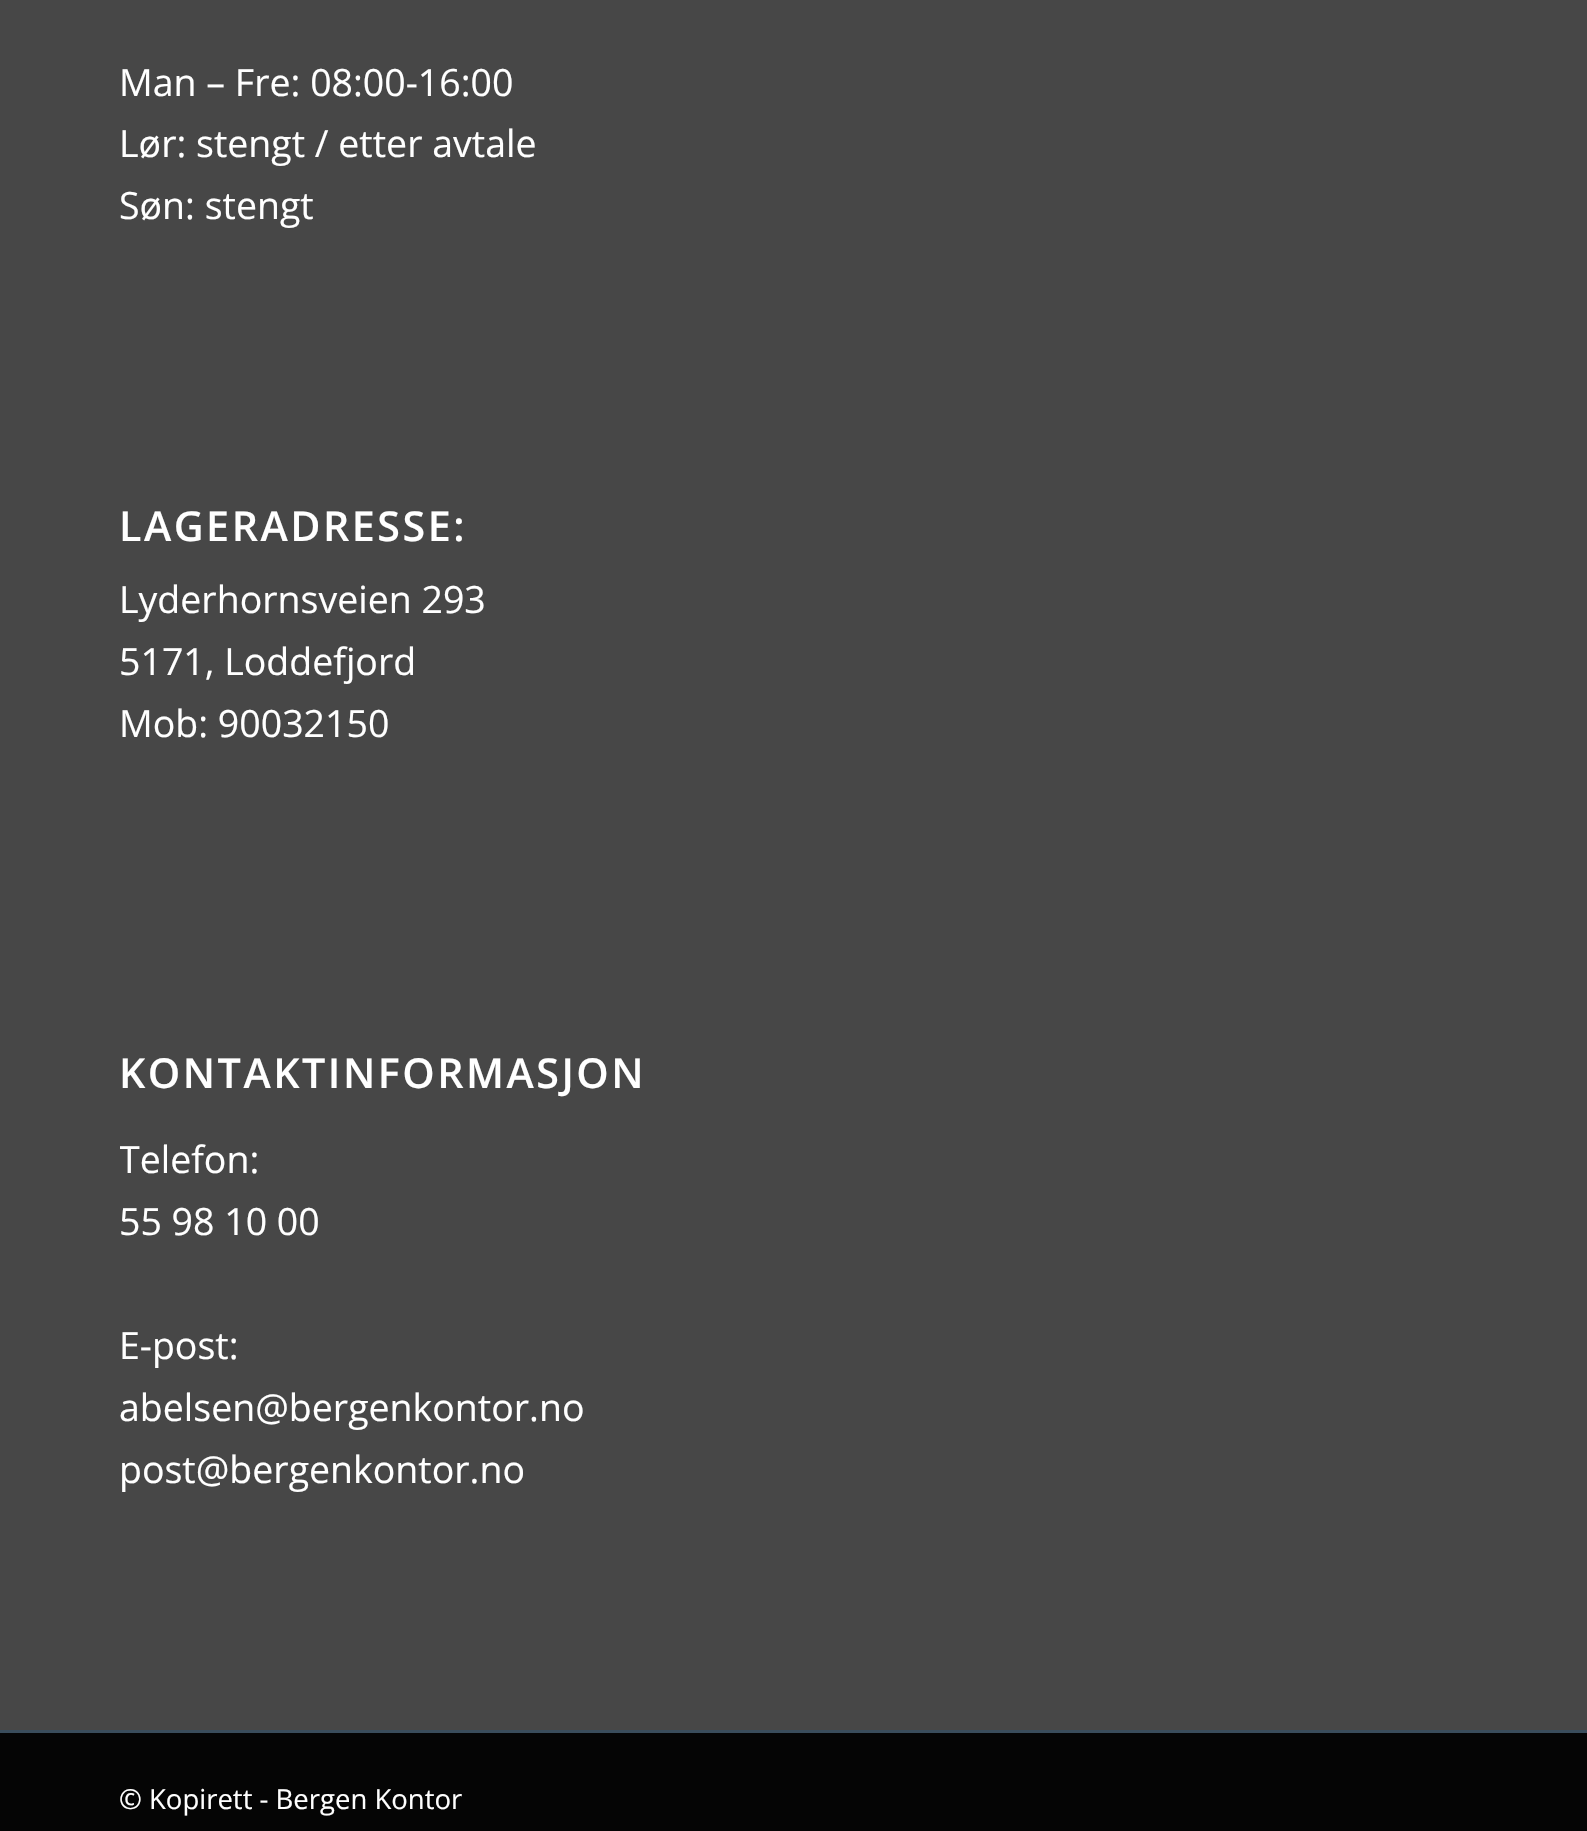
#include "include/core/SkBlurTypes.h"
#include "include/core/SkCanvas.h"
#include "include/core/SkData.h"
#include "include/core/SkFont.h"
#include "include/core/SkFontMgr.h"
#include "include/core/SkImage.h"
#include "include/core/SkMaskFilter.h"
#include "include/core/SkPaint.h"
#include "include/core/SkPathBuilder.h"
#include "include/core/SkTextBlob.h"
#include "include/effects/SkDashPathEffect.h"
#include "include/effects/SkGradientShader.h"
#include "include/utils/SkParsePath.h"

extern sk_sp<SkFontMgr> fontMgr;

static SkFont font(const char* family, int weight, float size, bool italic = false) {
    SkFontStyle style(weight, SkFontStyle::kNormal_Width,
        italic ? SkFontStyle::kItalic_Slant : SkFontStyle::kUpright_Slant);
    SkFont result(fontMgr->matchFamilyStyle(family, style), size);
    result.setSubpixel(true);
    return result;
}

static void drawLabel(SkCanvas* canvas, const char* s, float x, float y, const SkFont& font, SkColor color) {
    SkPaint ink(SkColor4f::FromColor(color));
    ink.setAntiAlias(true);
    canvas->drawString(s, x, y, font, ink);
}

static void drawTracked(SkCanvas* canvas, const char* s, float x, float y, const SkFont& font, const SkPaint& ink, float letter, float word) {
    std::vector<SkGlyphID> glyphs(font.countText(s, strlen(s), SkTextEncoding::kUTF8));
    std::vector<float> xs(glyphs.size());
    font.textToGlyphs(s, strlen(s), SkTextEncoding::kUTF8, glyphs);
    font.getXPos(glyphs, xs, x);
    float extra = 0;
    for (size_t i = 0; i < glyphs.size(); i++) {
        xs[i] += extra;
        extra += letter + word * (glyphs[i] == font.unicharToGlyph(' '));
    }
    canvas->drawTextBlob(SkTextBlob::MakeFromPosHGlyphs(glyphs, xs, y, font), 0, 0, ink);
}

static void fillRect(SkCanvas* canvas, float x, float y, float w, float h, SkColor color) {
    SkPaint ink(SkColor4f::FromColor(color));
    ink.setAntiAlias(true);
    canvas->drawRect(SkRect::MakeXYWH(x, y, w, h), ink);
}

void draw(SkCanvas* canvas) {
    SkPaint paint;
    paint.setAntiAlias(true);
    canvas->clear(0xFF474747);
    SkFont font1 = font("Open Sans", 400, 37.5f);
    drawLabel(canvas, "Man – Fre: 08:00-16:00", 119, 96, font1, 0xFFFFFFFF);
    drawLabel(canvas, "Lør: stengt / etter avtale", 119, 157, font1, 0xFFFFFFFF);
    drawLabel(canvas, "Søn: stengt", 119, 219, font1, 0xFFFFFFFF);
    SkFont font2 = font("Open Sans", 600, 41.25f);
    paint.setColor(0xFFFFFFFF);
    drawTracked(canvas, "LAGERADRESSE:", 119, 541, font2, paint, 2.5f, 0);
    drawLabel(canvas, "Lyderhornsveien 293", 119, 613, font1, 0xFFFFFFFF);
    drawLabel(canvas, "5171, Loddefjord", 119, 675, font1, 0xFFFFFFFF);
    drawLabel(canvas, "Mob: 90032150", 119, 737, font1, 0xFFFFFFFF);
    drawTracked(canvas, "KONTAKTINFORMASJON", 119, 1088, font2, paint, 2.5f, 0);
    canvas->save();
    canvas->clipRect(SkRect::MakeXYWH(120, 1015, 1348, 518));
    drawLabel(canvas, "Telefon:", 119, 1173, font1, 0xFFFFFFFF);
    canvas->restore();
    drawLabel(canvas, "55 98 10 00", 119, 1235, font1, 0xFFFFFFFF);
    drawLabel(canvas, "E-post:", 119, 1359, font1, 0xFFFFFFFF);
    drawLabel(canvas, "abelsen@bergenkontor.no", 119, 1421, font1, 0xFFFFFFFF);
    drawLabel(canvas, "post@bergenkontor.no", 119, 1483, font1, 0xFFFFFFFF);
    fillRect(canvas, 0, 1733, 1587, 98, 0xFF050505);
    fillRect(canvas, 0, 1730, 1587, 3, 0xFF3A4D5C);
    SkFont font3 = font("Open Sans", 400, 27.5f);
    drawLabel(canvas, "© Kopirett - Bergen Kontor", 119, 1809, font3, 0xFFFFFFFF);
}
